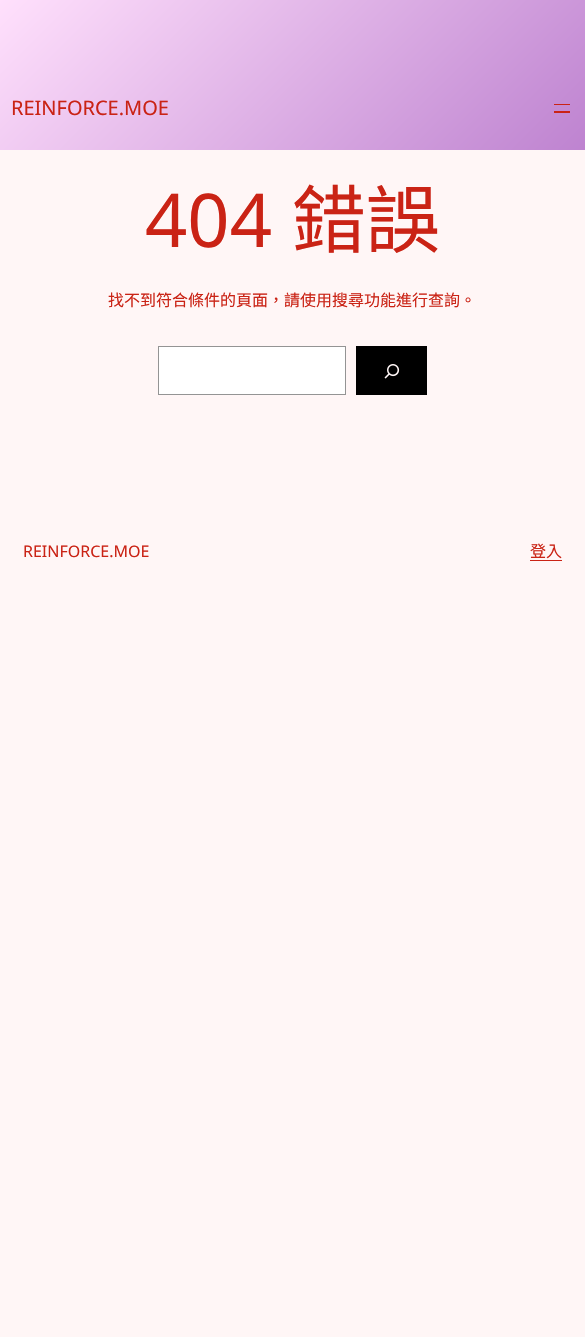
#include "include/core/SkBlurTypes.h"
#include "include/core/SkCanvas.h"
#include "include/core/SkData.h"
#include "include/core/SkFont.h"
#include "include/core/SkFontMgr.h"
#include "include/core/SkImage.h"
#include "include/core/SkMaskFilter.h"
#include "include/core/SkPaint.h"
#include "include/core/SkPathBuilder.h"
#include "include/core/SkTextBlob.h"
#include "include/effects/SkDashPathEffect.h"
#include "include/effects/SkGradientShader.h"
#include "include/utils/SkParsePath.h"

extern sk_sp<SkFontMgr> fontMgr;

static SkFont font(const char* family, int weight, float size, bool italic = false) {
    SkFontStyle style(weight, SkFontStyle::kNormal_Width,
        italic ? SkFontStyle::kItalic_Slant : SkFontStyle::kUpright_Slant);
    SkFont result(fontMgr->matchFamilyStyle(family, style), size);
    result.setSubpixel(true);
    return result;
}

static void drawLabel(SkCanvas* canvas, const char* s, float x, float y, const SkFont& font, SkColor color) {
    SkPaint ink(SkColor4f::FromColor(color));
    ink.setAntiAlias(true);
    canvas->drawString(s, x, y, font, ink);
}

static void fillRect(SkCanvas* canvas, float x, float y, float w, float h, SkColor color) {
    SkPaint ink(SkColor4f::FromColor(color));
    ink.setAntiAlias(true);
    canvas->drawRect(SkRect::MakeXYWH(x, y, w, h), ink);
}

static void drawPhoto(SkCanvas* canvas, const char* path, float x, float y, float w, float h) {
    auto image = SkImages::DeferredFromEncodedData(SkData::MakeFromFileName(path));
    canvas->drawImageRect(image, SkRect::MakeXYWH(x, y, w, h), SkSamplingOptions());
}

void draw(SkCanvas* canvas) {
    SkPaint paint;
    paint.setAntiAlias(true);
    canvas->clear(0xFFFFF6F6);
    {
        const SkColor colors[] = {0xFFFFE0FC, 0xFFBE83D0};
        const float stops[] = {0, 1};
        const SkPoint ends[] = {{109, -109}, {476, 259}};
        paint.setShader(SkGradientShader::MakeLinear(ends, colors, stops, 2, SkTileMode::kClamp));
        paint.setAlpha(255);
    }
    canvas->drawRect(SkRect::MakeXYWH(0, 0, 585, 150), paint);
    SkFont font1 = font("Noto Sans", 400, 20);
    drawLabel(canvas, "REINFORCE.MOE", 11, 115, font1, 0xFFCA2315);
    fillRect(canvas, 554, 104, 16, 1, 0xFFCA2315);
    fillRect(canvas, 554, 111, 16, 2, 0xFFCA2315);
    SkFont font2 = font("Noto Sans", 400, 74);
    drawLabel(canvas, "404", 145, 247, font2, 0xFFCA2315);
    SkFont font3 = font("Noto Sans TC", 400, 74);
    drawLabel(canvas, "錯誤", 292, 247, font3, 0xFFCA2315);
    SkFont font4 = font("Noto Sans TC", 400, 16);
    drawLabel(canvas, "找不到符合條件的頁面，請使用搜尋功能進行查詢。", 108, 306, font4, 0xFFCA2315);
    paint.setShader(nullptr);
    paint.setColor(0xFFFFFFFF);
    canvas->drawRect(SkRect::MakeXYWH(158.5f, 346.5f, 187, 48), paint);
    paint.setStroke(true);
    paint.setStrokeWidth(1);
    paint.setColor(0xFF949494);
    canvas->drawRect(SkRect::MakeXYWH(158.5f, 346.5f, 187, 48), paint);
    fillRect(canvas, 356, 346, 71, 49, 0xFF000000);
    drawPhoto(canvas, "assets/img1.png", 384, 364, 16, 15);
    SkFont font5 = font("Noto Sans", 400, 16);
    drawLabel(canvas, "REINFORCE.MOE", 23, 557, font5, 0xFFCA2315);
    drawLabel(canvas, "登入", 530, 557, font4, 0xFFCA2315);
    fillRect(canvas, 530, 560, 32, 1, 0xFFCA2315);
}
